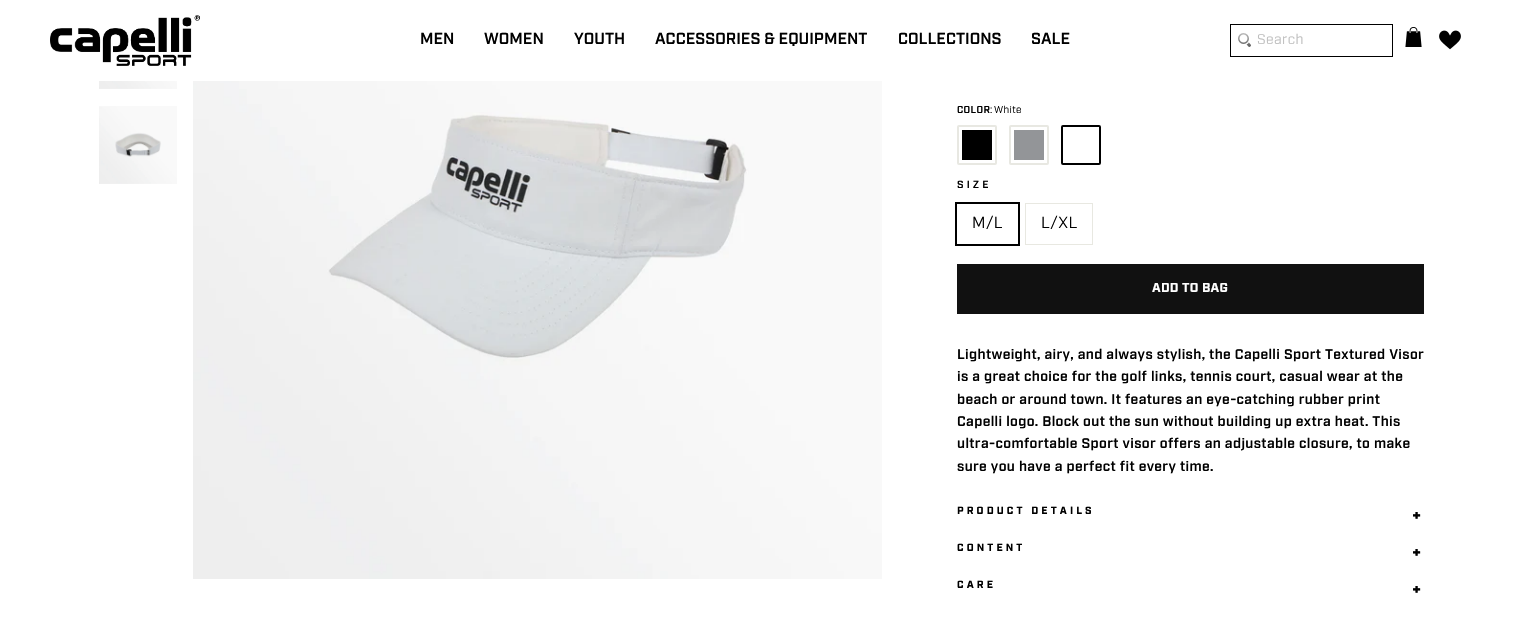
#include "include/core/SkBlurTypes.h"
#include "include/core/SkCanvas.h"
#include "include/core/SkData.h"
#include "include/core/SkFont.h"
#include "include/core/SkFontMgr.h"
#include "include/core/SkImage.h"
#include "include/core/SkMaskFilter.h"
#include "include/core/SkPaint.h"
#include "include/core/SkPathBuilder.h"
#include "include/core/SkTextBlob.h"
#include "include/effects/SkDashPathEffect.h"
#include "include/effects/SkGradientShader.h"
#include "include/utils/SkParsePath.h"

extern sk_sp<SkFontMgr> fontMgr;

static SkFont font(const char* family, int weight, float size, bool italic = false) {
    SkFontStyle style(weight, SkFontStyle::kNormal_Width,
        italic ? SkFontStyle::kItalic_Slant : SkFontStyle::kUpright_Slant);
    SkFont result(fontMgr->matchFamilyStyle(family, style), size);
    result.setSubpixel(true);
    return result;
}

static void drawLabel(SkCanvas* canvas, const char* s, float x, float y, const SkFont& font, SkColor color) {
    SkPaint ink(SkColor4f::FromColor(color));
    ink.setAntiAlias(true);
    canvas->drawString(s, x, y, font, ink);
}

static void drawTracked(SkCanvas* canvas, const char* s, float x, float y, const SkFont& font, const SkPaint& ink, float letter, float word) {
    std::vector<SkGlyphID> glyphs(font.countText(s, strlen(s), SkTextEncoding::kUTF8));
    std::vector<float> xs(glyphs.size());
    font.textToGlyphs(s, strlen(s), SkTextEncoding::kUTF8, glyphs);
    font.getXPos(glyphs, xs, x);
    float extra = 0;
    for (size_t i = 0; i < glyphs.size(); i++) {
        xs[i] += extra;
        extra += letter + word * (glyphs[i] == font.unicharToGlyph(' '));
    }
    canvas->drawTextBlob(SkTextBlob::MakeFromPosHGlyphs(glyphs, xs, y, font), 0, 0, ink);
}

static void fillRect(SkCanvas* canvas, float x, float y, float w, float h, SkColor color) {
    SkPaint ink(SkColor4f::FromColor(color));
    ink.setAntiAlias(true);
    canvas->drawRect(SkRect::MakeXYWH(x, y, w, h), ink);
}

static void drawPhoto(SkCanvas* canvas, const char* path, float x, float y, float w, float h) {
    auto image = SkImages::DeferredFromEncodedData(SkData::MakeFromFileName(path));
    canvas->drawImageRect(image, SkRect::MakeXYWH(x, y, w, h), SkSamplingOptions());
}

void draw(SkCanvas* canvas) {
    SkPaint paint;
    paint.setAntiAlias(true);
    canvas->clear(0xFFFFFFFF);
    drawPhoto(canvas, "assets/img1.png", 50, 15, 150, 51);
    SkFont font1 = font("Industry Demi", 600, 16);
    drawLabel(canvas, "MEN", 420, 44, font1, 0xFF000000);
    drawLabel(canvas, "WOMEN", 484, 44, font1, 0xFF000000);
    drawLabel(canvas, "YOUTH", 574, 44, font1, 0xFF000000);
    drawLabel(canvas, "ACCESSORIES & EQUIPMENT", 655, 44, font1, 0xFF000000);
    drawLabel(canvas, "COLLECTIONS", 898, 44, font1, 0xFF000000);
    drawLabel(canvas, "SALE", 1031, 44, font1, 0xFF000000);
    paint.setStroke(true);
    paint.setStrokeWidth(1);
    paint.setColor(0xFF000000);
    canvas->drawRect(SkRect::MakeXYWH(1230.5f, 24.5f, 162, 32), paint);
    drawPhoto(canvas, "assets/img2.png", 1238, 33, 13, 14);
    SkFont font2 = font("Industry", 400, 14);
    paint.setStroke(false);
    paint.setColor(0xFFBEBEBE);
    drawTracked(canvas, "Search", 1257, 44, font2, paint, 0.35f, 0);
    drawPhoto(canvas, "assets/img3.png", 1405, 27, 17, 20);
    drawPhoto(canvas, "assets/img4.png", 1439, 30, 22, 20);
    drawPhoto(canvas, "assets/img5.png", 99, 81, 78, 8);
    drawPhoto(canvas, "assets/img6.png", 99, 106, 78, 78);
    drawPhoto(canvas, "assets/img7.png", 193, 81, 689, 498);
    SkFont font3 = font("Industry Demi", 600, 10);
    paint.setColor(0xFF000000);
    drawTracked(canvas, "COLOR", 957, 113, font3, paint, 0.35f, 0);
    SkFont font4 = font("Industry", 400, 10);
    drawTracked(canvas, ":", 990, 113, font4, paint, 0.35f, 0);
    drawTracked(canvas, "White", 994, 113, font4, paint, 0.35f, 0);
    paint.setStroke(true);
    paint.setStrokeWidth(2);
    paint.setColor(0xFFE8E8E2);
    canvas->drawRoundRect(SkRect::MakeXYWH(958, 126, 38, 38), 1, 1, paint);
    fillRect(canvas, 962, 130, 30, 30, 0xFF000000);
    canvas->drawRoundRect(SkRect::MakeXYWH(1010, 126, 38, 38), 1, 1, paint);
    fillRect(canvas, 1014, 130, 30, 30, 0xFF939598);
    paint.setColor(0xFF000000);
    canvas->drawRoundRect(SkRect::MakeXYWH(1062, 126, 38, 38), 1, 1, paint);
    SkFont font5 = font("Industry Demi", 600, 10.5f);
    paint.setStroke(false);
    drawTracked(canvas, "SIZE", 957, 188, font5, paint, 3.1f, 0);
    paint.setStroke(true);
    canvas->drawRect(SkRect::MakeXYWH(956, 203, 63, 42), paint);
    SkFont font6 = font("Industry", 400, 16);
    paint.setStroke(false);
    drawTracked(canvas, "M/L", 972, 228, font6, paint, 0.5f, 0);
    paint.setStroke(true);
    paint.setStrokeWidth(1);
    paint.setColor(0xFFE8E8E1);
    canvas->drawRect(SkRect::MakeXYWH(1025.5f, 203.5f, 67, 41), paint);
    paint.setStroke(false);
    paint.setColor(0xFF000000);
    drawTracked(canvas, "L/XL", 1041, 228, font6, paint, 0.5f, 0);
    fillRect(canvas, 957, 264, 467, 50, 0xFF111111);
    SkFont font7 = font("Industry", 700, 13);
    paint.setColor(0xFFFFFFFF);
    drawTracked(canvas, "ADD TO BAG", 1152, 292, font7, paint, 0.25f, 0);
    SkFont font8 = font("Industry Demi", 600, 14);
    paint.setColor(0xFF000000);
    drawTracked(canvas, "Lightweight, airy, and always stylish, the Capelli Sport Textured Visor", 957, 359, font8, paint, 0.35f, 0);
    drawTracked(canvas, "is a great choice for the golf links, tennis court, casual wear at the", 957, 381, font8, paint, 0.35f, 0);
    drawTracked(canvas, "beach or around town. It features an eye-catching rubber print", 957, 404, font8, paint, 0.35f, 0);
    drawTracked(canvas, "Capelli logo. Block out the sun without building up extra heat. This", 957, 426, font8, paint, 0.35f, 0);
    drawTracked(canvas, "ultra-comfortable Sport visor offers an adjustable closure, to make", 957, 448, font8, paint, 0.35f, 0);
    drawTracked(canvas, "sure you have a perfect fit every time.", 957, 471, font8, paint, 0.35f, 0);
    SkFont font9 = font("Industry", 700, 10.5f);
    drawTracked(canvas, "PRODUCT DETAILS", 957, 514, font9, paint, 3.1f, 0);
    SkFont font10 = font("Industry", 700, 18);
    drawTracked(canvas, "+", 1412, 522, font10, paint, 3.1f, 0);
    drawTracked(canvas, "CONTENT", 957, 551, font9, paint, 3.1f, 0);
    drawTracked(canvas, "+", 1412, 559, font10, paint, 3.1f, 0);
    drawTracked(canvas, "CARE", 957, 588, font9, paint, 3.1f, 0);
    drawTracked(canvas, "+", 1412, 596, font10, paint, 3.1f, 0);
}
